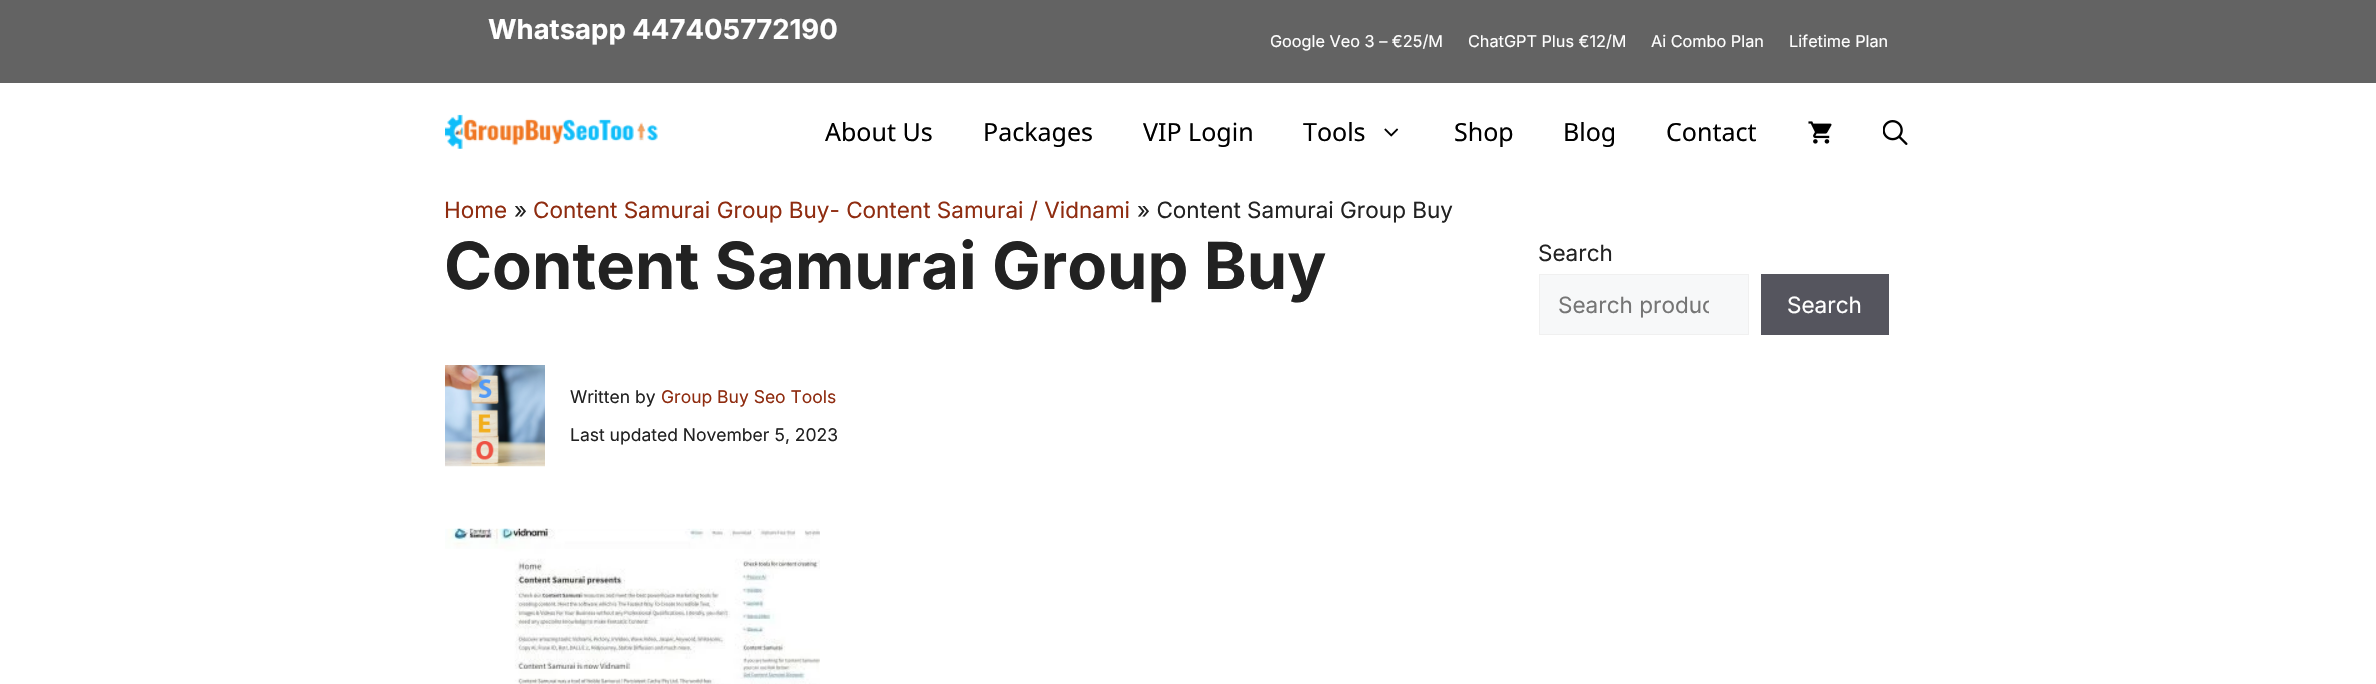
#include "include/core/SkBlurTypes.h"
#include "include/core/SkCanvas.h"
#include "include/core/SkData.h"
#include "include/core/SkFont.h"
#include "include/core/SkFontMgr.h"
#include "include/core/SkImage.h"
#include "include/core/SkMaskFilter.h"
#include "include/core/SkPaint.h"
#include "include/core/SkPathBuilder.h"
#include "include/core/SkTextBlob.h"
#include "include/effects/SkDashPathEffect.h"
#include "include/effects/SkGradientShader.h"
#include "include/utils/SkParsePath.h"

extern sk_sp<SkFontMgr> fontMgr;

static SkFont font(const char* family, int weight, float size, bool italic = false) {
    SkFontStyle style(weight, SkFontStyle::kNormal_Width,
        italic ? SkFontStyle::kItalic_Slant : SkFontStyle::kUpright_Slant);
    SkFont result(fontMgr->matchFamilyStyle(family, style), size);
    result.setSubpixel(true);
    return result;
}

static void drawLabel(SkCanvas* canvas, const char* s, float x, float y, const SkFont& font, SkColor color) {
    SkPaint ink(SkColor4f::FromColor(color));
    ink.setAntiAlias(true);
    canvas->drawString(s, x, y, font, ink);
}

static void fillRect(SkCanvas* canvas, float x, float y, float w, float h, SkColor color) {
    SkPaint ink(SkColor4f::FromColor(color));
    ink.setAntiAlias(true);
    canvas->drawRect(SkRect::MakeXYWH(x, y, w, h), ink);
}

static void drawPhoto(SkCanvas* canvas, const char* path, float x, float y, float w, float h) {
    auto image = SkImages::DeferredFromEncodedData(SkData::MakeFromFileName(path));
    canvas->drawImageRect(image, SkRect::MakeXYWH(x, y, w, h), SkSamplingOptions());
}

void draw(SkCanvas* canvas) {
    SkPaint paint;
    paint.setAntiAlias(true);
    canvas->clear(0xFFFFFFFF);
    fillRect(canvas, 0, 0, 2376, 83, 0xFF636363);
    SkFont font1 = font("Inter", 700, 27.5f);
    drawLabel(canvas, "Whatsapp 447405772190", 488, 39, font1, 0xFFFFFFFF);
    SkFont font2 = font("Inter", 400, 16.25f);
    drawLabel(canvas, "Google Veo 3 – €25/M", 1270, 47, font2, 0xFFFFFFFF);
    drawLabel(canvas, "ChatGPT Plus €12/M", 1468, 47, font2, 0xFFFFFFFF);
    drawLabel(canvas, "Ai Combo Plan", 1651, 47, font2, 0xFFFFFFFF);
    drawLabel(canvas, "Lifetime Plan", 1789, 47, font2, 0xFFFFFFFF);
    drawPhoto(canvas, "assets/img1.png", 445, 114, 213, 35);
    SkFont font3 = font("Noto Sans", 400, 25);
    drawLabel(canvas, "About Us", 825, 141, font3, 0xFF000000);
    drawLabel(canvas, "Packages", 983, 141, font3, 0xFF000000);
    drawLabel(canvas, "VIP Login", 1143, 141, font3, 0xFF000000);
    drawLabel(canvas, "Tools", 1303, 141, font3, 0xFF000000);
    drawPhoto(canvas, "assets/img2.png", 1384, 128, 15, 9);
    drawLabel(canvas, "Shop", 1454, 141, font3, 0xFF000000);
    drawLabel(canvas, "Blog", 1563, 141, font3, 0xFF000000);
    drawLabel(canvas, "Contact", 1666, 141, font3, 0xFF000000);
    drawPhoto(canvas, "assets/img3.png", 1808, 121, 24, 23);
    drawPhoto(canvas, "assets/img4.png", 1883, 120, 25, 25);
    SkFont font4 = font("Inter", 400, 22.5f);
    drawLabel(canvas, "Home", 444, 218, font4, 0xFF8F2C10);
    drawLabel(canvas, "»", 514, 218, font4, 0xFF222222);
    drawLabel(canvas, "Content Samurai Group Buy- Content Samurai / Vidnami", 533, 218, font4, 0xFF8F2C10);
    drawLabel(canvas, "» Content Samurai Group Buy", 1137, 218, font4, 0xFF222222);
    SkFont font5 = font("Inter", 700, 65);
    drawLabel(canvas, "Content Samurai Group Buy", 444, 289, font5, 0xFF222222);
    drawPhoto(canvas, "assets/img5.png", 445, 365, 100, 102);
    SkFont font6 = font("Inter", 400, 17.5f);
    drawLabel(canvas, "Written by", 570, 403, font6, 0xFF222222);
    drawLabel(canvas, "Group Buy Seo Tools", 661, 403, font6, 0xFF8F2C10);
    drawLabel(canvas, "Last updated November 5, 2023", 570, 441, font6, 0xFF222222);
    drawPhoto(canvas, "assets/img6.png", 445, 528, 375, 156);
    drawLabel(canvas, "Search", 1538, 261, font4, 0xFF222222);
    paint.setColor(0xFFF7F8F9);
    canvas->drawRect(SkRect::MakeXYWH(1539.5f, 274.5f, 209, 60), paint);
    paint.setStroke(true);
    paint.setStrokeWidth(1);
    paint.setColor(0xFFF0F0F0);
    canvas->drawRect(SkRect::MakeXYWH(1539.5f, 274.5f, 209, 60), paint);
    canvas->save();
    canvas->clipRect(SkRect::MakeXYWH(1559, 291, 150, 27));
    drawLabel(canvas, "Search produc", 1558, 313, font4, 0xFF757575);
    canvas->restore();
    fillRect(canvas, 1761, 274, 128, 61, 0xFF55555E);
    drawLabel(canvas, "Search", 1787, 313, font4, 0xFFFFFFFF);
}
